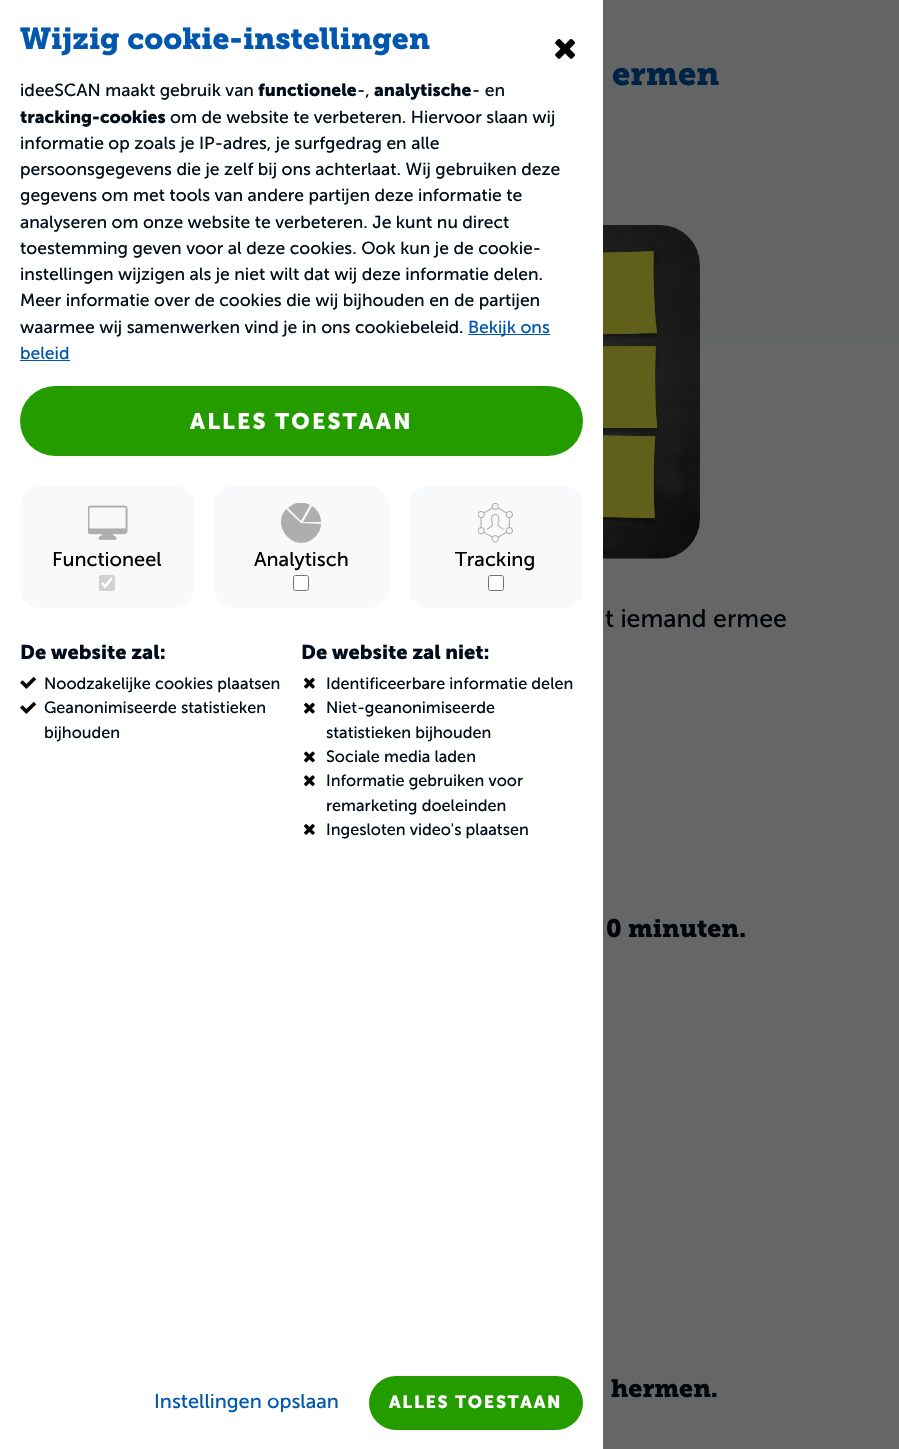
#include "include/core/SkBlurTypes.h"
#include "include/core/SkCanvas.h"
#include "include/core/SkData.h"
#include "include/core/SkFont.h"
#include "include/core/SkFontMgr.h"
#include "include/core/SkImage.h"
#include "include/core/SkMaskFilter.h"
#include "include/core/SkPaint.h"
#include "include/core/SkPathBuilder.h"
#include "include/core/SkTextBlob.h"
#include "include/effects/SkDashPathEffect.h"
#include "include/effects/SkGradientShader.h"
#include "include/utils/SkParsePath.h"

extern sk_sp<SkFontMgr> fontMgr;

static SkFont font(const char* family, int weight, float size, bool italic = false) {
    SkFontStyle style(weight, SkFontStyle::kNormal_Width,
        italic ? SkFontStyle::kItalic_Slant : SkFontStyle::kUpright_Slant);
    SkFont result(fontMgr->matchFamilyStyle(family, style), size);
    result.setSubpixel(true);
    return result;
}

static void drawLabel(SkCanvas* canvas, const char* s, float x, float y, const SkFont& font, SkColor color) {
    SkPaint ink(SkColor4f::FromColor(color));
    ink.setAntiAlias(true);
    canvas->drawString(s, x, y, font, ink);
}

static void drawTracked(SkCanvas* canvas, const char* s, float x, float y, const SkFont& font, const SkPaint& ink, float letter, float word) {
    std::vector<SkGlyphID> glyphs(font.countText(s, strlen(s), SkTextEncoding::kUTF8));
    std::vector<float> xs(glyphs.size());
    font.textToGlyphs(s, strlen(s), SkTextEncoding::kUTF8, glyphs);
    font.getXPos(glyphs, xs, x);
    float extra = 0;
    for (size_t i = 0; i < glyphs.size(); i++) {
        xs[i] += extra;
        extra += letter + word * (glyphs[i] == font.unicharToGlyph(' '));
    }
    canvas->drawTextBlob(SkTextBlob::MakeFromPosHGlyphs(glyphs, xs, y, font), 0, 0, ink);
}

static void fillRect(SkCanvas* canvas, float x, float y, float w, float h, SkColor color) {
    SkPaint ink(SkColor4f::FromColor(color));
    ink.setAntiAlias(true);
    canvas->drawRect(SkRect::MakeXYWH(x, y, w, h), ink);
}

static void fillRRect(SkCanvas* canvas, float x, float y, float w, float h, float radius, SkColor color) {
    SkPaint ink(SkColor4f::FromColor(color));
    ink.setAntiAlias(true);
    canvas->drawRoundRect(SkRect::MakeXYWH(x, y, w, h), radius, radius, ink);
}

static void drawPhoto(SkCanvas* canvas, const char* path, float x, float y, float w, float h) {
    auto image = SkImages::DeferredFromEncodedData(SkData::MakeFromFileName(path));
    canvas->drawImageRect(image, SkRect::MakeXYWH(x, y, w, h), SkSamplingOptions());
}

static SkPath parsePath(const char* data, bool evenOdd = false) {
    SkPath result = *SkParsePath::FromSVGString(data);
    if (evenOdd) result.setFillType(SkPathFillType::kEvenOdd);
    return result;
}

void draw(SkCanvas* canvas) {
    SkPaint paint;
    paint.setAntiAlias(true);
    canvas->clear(0xFF666666);
    fillRect(canvas, 0, 0, 603, 1449, 0xFFFFFFFF);
    SkFont font1 = font("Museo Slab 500", 700, 30);
    drawLabel(canvas, "Wijzig cookie-instellingen", 20, 49, font1, 0xFF0057AD);
    drawPhoto(canvas, "assets/img1.png", 555, 39, 20, 20);
    SkFont font2 = font("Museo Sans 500", 400, 17.5f);
    drawLabel(canvas, "ideeSCAN maakt gebruik van", 20, 96, font2, 0xFF000D1A);
    SkFont font3 = font("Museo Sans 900", 700, 17.5f);
    drawLabel(canvas, "functionele", 258, 96, font3, 0xFF000D1A);
    drawLabel(canvas, "-,", 357, 96, font2, 0xFF000D1A);
    drawLabel(canvas, "analytische", 374, 96, font3, 0xFF000D1A);
    drawLabel(canvas, "- en", 472, 96, font2, 0xFF000D1A);
    drawLabel(canvas, "tracking-cookies", 20, 123, font3, 0xFF000D1A);
    drawLabel(canvas, "om de website te verbeteren. Hiervoor slaan wij", 170, 123, font2, 0xFF000D1A);
    drawLabel(canvas, "informatie op zoals je IP-adres, je surfgedrag en alle", 20, 149, font2, 0xFF000D1A);
    drawLabel(canvas, "persoonsgegevens die je zelf bij ons achterlaat. Wij gebruiken deze", 20, 175, font2, 0xFF000D1A);
    drawLabel(canvas, "gegevens om met tools van andere partijen deze informatie te", 20, 201, font2, 0xFF000D1A);
    drawLabel(canvas, "analyseren om onze website te verbeteren. Je kunt nu direct", 20, 228, font2, 0xFF000D1A);
    drawLabel(canvas, "toestemming geven voor al deze cookies. Ook kun je de cookie-", 20, 254, font2, 0xFF000D1A);
    drawLabel(canvas, "instellingen wijzigen als je niet wilt dat wij deze informatie delen.", 20, 280, font2, 0xFF000D1A);
    drawLabel(canvas, "Meer informatie over de cookies die wij bijhouden en de partijen", 20, 306, font2, 0xFF000D1A);
    drawLabel(canvas, "waarmee wij samenwerken vind je in ons cookiebeleid.", 20, 333, font2, 0xFF000D1A);
    fillRect(canvas, 468, 334, 82, 1, 0xFF0057AD);
    drawLabel(canvas, "Bekijk ons", 468, 333, font2, 0xFF0057AD);
    drawLabel(canvas, "beleid", 20, 359, font2, 0xFF0057AD);
    fillRect(canvas, 20, 360, 50, 1, 0xFF0057AD);
    fillRRect(canvas, 20, 386, 563, 70, 35, 0xFF249C00);
    SkFont font4 = font("Museo Sans 900", 700, 22.5f);
    paint.setColor(0xFFFFFFFF);
    drawTracked(canvas, "ALLES TOESTAAN", 190, 429, font4, paint, 2.25f, 0);
    fillRRect(canvas, 20, 486, 174, 122, 20, 0xFFF7F9FA);
    drawPhoto(canvas, "assets/img2.png", 88, 505, 40, 35);
    SkFont font5 = font("Museo Sans 500", 400, 20);
    drawLabel(canvas, "Functioneel", 52, 566, font5, 0xFF000000);
    fillRRect(canvas, 99, 575, 16, 16, 2.5f, 0xFFD0D2D2);
    paint.setStroke(true);
    paint.setStrokeWidth(2.6f);
    canvas->drawPath(parsePath("M102 583L105 586.5L112 578"), paint);
    fillRRect(canvas, 214, 486, 175, 122, 20, 0xFFF7F9FA);
    canvas->save();
    canvas->clipRect(SkRect::MakeXYWH(281, 503, 40, 40));
    paint.setStroke(false);
    paint.setColor(0xFFADAEAF);
    canvas->drawPath(parsePath("M321 524C321 529 319 533 315 537C296 555 270 527 286 509L301 523ZM321 522H303L312 506C317 509 321 515 321 522ZM310 505L301 521L288 508C294 502 303 501 310 505Z"), paint);
    canvas->restore();
    drawLabel(canvas, "Analytisch", 254, 566, font5, 0xFF000000);
    paint.setColor(0xFFFFFFFF);
    canvas->drawRoundRect(SkRect::MakeXYWH(293.5f, 575.5f, 15, 15), 2, 2, paint);
    paint.setStroke(true);
    paint.setStrokeWidth(1);
    paint.setColor(0xFF767676);
    canvas->drawRoundRect(SkRect::MakeXYWH(293.5f, 575.5f, 15, 15), 2, 2, paint);
    fillRRect(canvas, 409, 486, 174, 122, 20, 0xFFF7F9FA);
    drawPhoto(canvas, "assets/img3.png", 478, 503, 35, 40);
    drawLabel(canvas, "Tracking", 455, 566, font5, 0xFF000000);
    paint.setStroke(false);
    paint.setColor(0xFFFFFFFF);
    canvas->drawRoundRect(SkRect::MakeXYWH(488.5f, 575.5f, 15, 15), 2, 2, paint);
    paint.setStroke(true);
    paint.setColor(0xFF767676);
    canvas->drawRoundRect(SkRect::MakeXYWH(488.5f, 575.5f, 15, 15), 2, 2, paint);
    SkFont font6 = font("Museo Sans 900", 700, 20);
    drawLabel(canvas, "De website zal:", 20, 659, font6, 0xFF000D1A);
    drawPhoto(canvas, "assets/img4.png", 20, 676, 16, 13);
    SkFont font7 = font("Museo Sans 500", 400, 16.25f);
    drawLabel(canvas, "Noodzakelijke cookies plaatsen", 44, 689, font7, 0xFF000D1A);
    drawPhoto(canvas, "assets/img4.png", 20, 701, 16, 13);
    drawLabel(canvas, "Geanonimiseerde statistieken", 44, 713, font7, 0xFF000D1A);
    drawLabel(canvas, "bijhouden", 44, 738, font7, 0xFF000D1A);
    drawLabel(canvas, "De website zal niet:", 301, 659, font6, 0xFF000D1A);
    drawPhoto(canvas, "assets/img5.png", 304, 677, 11, 12);
    drawLabel(canvas, "Identificeerbare informatie delen", 326, 689, font7, 0xFF000D1A);
    drawPhoto(canvas, "assets/img5.png", 304, 702, 11, 12);
    drawLabel(canvas, "Niet-geanonimiseerde", 326, 713, font7, 0xFF000D1A);
    drawLabel(canvas, "statistieken bijhouden", 326, 738, font7, 0xFF000D1A);
    drawPhoto(canvas, "assets/img6.png", 304, 751, 11, 12);
    drawLabel(canvas, "Sociale media laden", 326, 762, font7, 0xFF000D1A);
    drawPhoto(canvas, "assets/img7.png", 304, 775, 11, 11);
    drawLabel(canvas, "Informatie gebruiken voor", 326, 786, font7, 0xFF000D1A);
    drawLabel(canvas, "remarketing doeleinden", 326, 811, font7, 0xFF000D1A);
    drawPhoto(canvas, "assets/img8.png", 304, 824, 11, 11);
    drawLabel(canvas, "Ingesloten video's plaatsen", 326, 835, font7, 0xFF000D1A);
    drawLabel(canvas, "Instellingen opslaan", 154, 1408, font5, 0xFF0057AD);
    fillRRect(canvas, 369, 1376, 214, 54, 27, 0xFF249C00);
    paint.setStroke(false);
    paint.setColor(0xFFFFFFFF);
    drawTracked(canvas, "ALLES TOESTAAN", 389, 1408, font3, paint, 1.75f, 0);
    fillRect(canvas, 603, 0, 296, 15, 0xFF636464);
    fillRect(canvas, 603, 15, 296, 210, 0xFF636464);
    SkFont font8 = font("Museo Slab 500", 700, 32.5f);
    drawLabel(canvas, "ermen", 612, 85, font8, 0xFF002345);
    fillRect(canvas, 660, 225, 239, 120, 0xFF636464);
    drawPhoto(canvas, "assets/img9.png", 603, 225, 97, 334);
    SkFont font9 = font("Museo Sans 500", 400, 25);
    drawLabel(canvas, "t iemand ermee", 605, 627, font9, 0xFF00050A);
    SkFont font10 = font("Museo Slab 500", 700, 25);
    drawLabel(canvas, "0 minuten.", 606, 937, font10, 0xFF00050A);
    drawLabel(canvas, "hermen.", 611, 1397, font10, 0xFF00050A);
}
